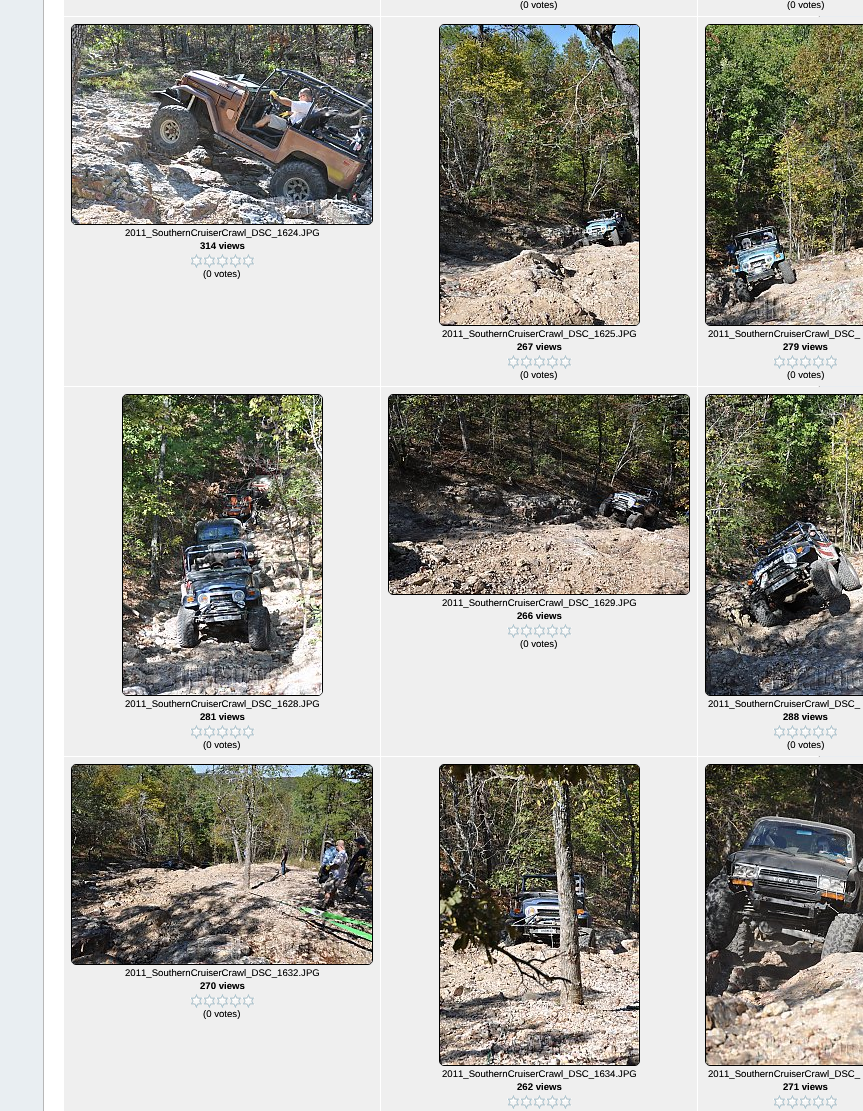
#include "include/core/SkBlurTypes.h"
#include "include/core/SkCanvas.h"
#include "include/core/SkData.h"
#include "include/core/SkFont.h"
#include "include/core/SkFontMgr.h"
#include "include/core/SkImage.h"
#include "include/core/SkMaskFilter.h"
#include "include/core/SkPaint.h"
#include "include/core/SkPathBuilder.h"
#include "include/core/SkTextBlob.h"
#include "include/effects/SkDashPathEffect.h"
#include "include/effects/SkGradientShader.h"
#include "include/utils/SkParsePath.h"

extern sk_sp<SkFontMgr> fontMgr;

static SkFont font(const char* family, int weight, float size, bool italic = false) {
    SkFontStyle style(weight, SkFontStyle::kNormal_Width,
        italic ? SkFontStyle::kItalic_Slant : SkFontStyle::kUpright_Slant);
    SkFont result(fontMgr->matchFamilyStyle(family, style), size);
    result.setSubpixel(true);
    return result;
}

static void drawLabel(SkCanvas* canvas, const char* s, float x, float y, const SkFont& font, SkColor color) {
    SkPaint ink(SkColor4f::FromColor(color));
    ink.setAntiAlias(true);
    canvas->drawString(s, x, y, font, ink);
}

static void fillRect(SkCanvas* canvas, float x, float y, float w, float h, SkColor color) {
    SkPaint ink(SkColor4f::FromColor(color));
    ink.setAntiAlias(true);
    canvas->drawRect(SkRect::MakeXYWH(x, y, w, h), ink);
}

static void drawPhoto(SkCanvas* canvas, const char* path, float x, float y, float w, float h) {
    auto image = SkImages::DeferredFromEncodedData(SkData::MakeFromFileName(path));
    canvas->drawImageRect(image, SkRect::MakeXYWH(x, y, w, h), SkSamplingOptions());
}

void draw(SkCanvas* canvas) {
    SkPaint paint;
    paint.setAntiAlias(true);
    canvas->clear(0xFFE9EEF2);
    fillRect(canvas, 44, 0, 774, 1111, 0xFFFFFFFF);
    fillRect(canvas, 43, 0, 1, 1111, 0xFFB7B7B7);
    drawPhoto(canvas, "assets/img1.png", 818, 16, 2, 741);
    fillRect(canvas, 64, 0, 316, 16, 0xFFEFEFEF);
    fillRect(canvas, 381, 0, 316, 16, 0xFFEFEFEF);
    SkFont font1 = font("Liberation Sans", 400, 9.6f);
    drawLabel(canvas, "(0 votes)", 520, 8, font1, 0xFF000000);
    fillRect(canvas, 698, 0, 165, 16, 0xFFEFEFEF);
    drawLabel(canvas, "(0 votes)", 787, 8, font1, 0xFF000000);
    fillRect(canvas, 64, 17, 316, 369, 0xFFEFEFEF);
    paint.setStroke(true);
    paint.setStrokeWidth(1);
    paint.setColor(0xFF000000);
    canvas->drawRoundRect(SkRect::MakeXYWH(71.5f, 24.5f, 301, 200), 4.5f, 4.5f, paint);
    drawPhoto(canvas, "assets/img2.png", 72, 25, 300, 199);
    drawLabel(canvas, "2011_SouthernCruiserCrawl_DSC_1624.JPG", 125, 236, font1, 0xFF000000);
    SkFont font2 = font("Liberation Sans", 700, 9.6f);
    drawLabel(canvas, "314 views", 200, 249, font2, 0xFF000000);
    drawPhoto(canvas, "assets/img3.png", 190, 254, 13, 14);
    drawPhoto(canvas, "assets/img3.png", 203, 254, 13, 14);
    drawPhoto(canvas, "assets/img3.png", 216, 254, 13, 14);
    drawPhoto(canvas, "assets/img3.png", 229, 254, 13, 14);
    drawPhoto(canvas, "assets/img3.png", 242, 254, 13, 14);
    drawLabel(canvas, "(0 votes)", 203, 277, font1, 0xFF000000);
    fillRect(canvas, 381, 17, 316, 369, 0xFFEFEFEF);
    canvas->drawRoundRect(SkRect::MakeXYWH(439.5f, 24.5f, 200, 301), 4.5f, 4.5f, paint);
    drawPhoto(canvas, "assets/img4.png", 440, 25, 199, 300);
    drawLabel(canvas, "2011_SouthernCruiserCrawl_DSC_1625.JPG", 442, 337, font1, 0xFF000000);
    drawLabel(canvas, "267 views", 517, 350, font2, 0xFF000000);
    drawPhoto(canvas, "assets/img3.png", 507, 355, 13, 14);
    drawPhoto(canvas, "assets/img3.png", 520, 355, 13, 14);
    drawPhoto(canvas, "assets/img3.png", 533, 355, 13, 14);
    drawPhoto(canvas, "assets/img3.png", 546, 355, 13, 14);
    drawPhoto(canvas, "assets/img3.png", 559, 355, 13, 14);
    drawLabel(canvas, "(0 votes)", 520, 378, font1, 0xFF000000);
    fillRect(canvas, 698, 17, 165, 369, 0xFFEFEFEF);
    canvas->drawRoundRect(SkRect::MakeXYWH(705.5f, 24.5f, 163, 301), 4.5f, 4.5f, paint);
    drawPhoto(canvas, "assets/img5.png", 706, 25, 157, 300);
    drawLabel(canvas, "2011_SouthernCruiserCrawl_DSC_", 708, 337, font1, 0xFF000000);
    drawLabel(canvas, "279 views", 783, 350, font2, 0xFF000000);
    drawPhoto(canvas, "assets/img3.png", 773, 355, 13, 14);
    drawPhoto(canvas, "assets/img3.png", 786, 355, 13, 14);
    drawPhoto(canvas, "assets/img3.png", 799, 355, 13, 14);
    drawPhoto(canvas, "assets/img3.png", 812, 355, 13, 14);
    drawPhoto(canvas, "assets/img3.png", 825, 355, 13, 14);
    drawLabel(canvas, "(0 votes)", 787, 378, font1, 0xFF000000);
    fillRect(canvas, 381, 387, 316, 369, 0xFFEFEFEF);
    canvas->drawRoundRect(SkRect::MakeXYWH(388.5f, 394.5f, 301, 200), 4.5f, 4.5f, paint);
    drawPhoto(canvas, "assets/img6.png", 389, 395, 300, 199);
    drawLabel(canvas, "2011_SouthernCruiserCrawl_DSC_1629.JPG", 442, 606, font1, 0xFF000000);
    drawLabel(canvas, "266 views", 517, 619, font2, 0xFF000000);
    drawPhoto(canvas, "assets/img3.png", 507, 624, 13, 14);
    drawPhoto(canvas, "assets/img3.png", 520, 624, 13, 14);
    drawPhoto(canvas, "assets/img3.png", 533, 624, 13, 14);
    drawPhoto(canvas, "assets/img3.png", 546, 624, 13, 14);
    drawPhoto(canvas, "assets/img3.png", 559, 624, 13, 14);
    drawLabel(canvas, "(0 votes)", 520, 647, font1, 0xFF000000);
    fillRect(canvas, 64, 387, 316, 369, 0xFFEFEFEF);
    canvas->drawRoundRect(SkRect::MakeXYWH(122.5f, 394.5f, 200, 301), 4.5f, 4.5f, paint);
    drawPhoto(canvas, "assets/img7.png", 123, 395, 199, 300);
    drawLabel(canvas, "2011_SouthernCruiserCrawl_DSC_1628.JPG", 125, 707, font1, 0xFF000000);
    drawLabel(canvas, "281 views", 200, 720, font2, 0xFF000000);
    drawPhoto(canvas, "assets/img3.png", 190, 725, 13, 14);
    drawPhoto(canvas, "assets/img3.png", 203, 725, 13, 14);
    drawPhoto(canvas, "assets/img3.png", 216, 725, 13, 14);
    drawPhoto(canvas, "assets/img3.png", 229, 725, 13, 14);
    drawPhoto(canvas, "assets/img3.png", 242, 725, 13, 14);
    drawLabel(canvas, "(0 votes)", 203, 748, font1, 0xFF000000);
    fillRect(canvas, 698, 387, 165, 369, 0xFFEFEFEF);
    canvas->drawRoundRect(SkRect::MakeXYWH(705.5f, 394.5f, 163, 301), 4.5f, 4.5f, paint);
    drawPhoto(canvas, "assets/img8.png", 706, 395, 157, 300);
    drawLabel(canvas, "2011_SouthernCruiserCrawl_DSC_", 708, 707, font1, 0xFF000000);
    drawLabel(canvas, "288 views", 783, 720, font2, 0xFF000000);
    drawPhoto(canvas, "assets/img3.png", 773, 725, 13, 14);
    drawPhoto(canvas, "assets/img3.png", 786, 725, 13, 14);
    drawPhoto(canvas, "assets/img3.png", 799, 725, 13, 14);
    drawPhoto(canvas, "assets/img3.png", 812, 725, 13, 14);
    drawPhoto(canvas, "assets/img3.png", 825, 725, 13, 14);
    drawLabel(canvas, "(0 votes)", 787, 748, font1, 0xFF000000);
    fillRect(canvas, 64, 757, 316, 354, 0xFFEFEFEF);
    canvas->drawRoundRect(SkRect::MakeXYWH(71.5f, 764.5f, 301, 200), 4.5f, 4.5f, paint);
    drawPhoto(canvas, "assets/img9.png", 72, 765, 300, 199);
    drawLabel(canvas, "2011_SouthernCruiserCrawl_DSC_1632.JPG", 125, 976, font1, 0xFF000000);
    drawLabel(canvas, "270 views", 200, 989, font2, 0xFF000000);
    drawPhoto(canvas, "assets/img3.png", 190, 994, 13, 14);
    drawPhoto(canvas, "assets/img3.png", 203, 994, 13, 14);
    drawPhoto(canvas, "assets/img3.png", 216, 994, 13, 14);
    drawPhoto(canvas, "assets/img3.png", 229, 994, 13, 14);
    drawPhoto(canvas, "assets/img3.png", 242, 994, 13, 14);
    drawLabel(canvas, "(0 votes)", 203, 1017, font1, 0xFF000000);
    fillRect(canvas, 381, 757, 316, 354, 0xFFEFEFEF);
    canvas->drawRoundRect(SkRect::MakeXYWH(439.5f, 764.5f, 200, 301), 4.5f, 4.5f, paint);
    drawPhoto(canvas, "assets/img10.png", 440, 765, 199, 300);
    drawLabel(canvas, "2011_SouthernCruiserCrawl_DSC_1634.JPG", 442, 1077, font1, 0xFF000000);
    drawLabel(canvas, "262 views", 517, 1090, font2, 0xFF000000);
    drawPhoto(canvas, "assets/img3.png", 507, 1095, 13, 14);
    drawPhoto(canvas, "assets/img3.png", 520, 1095, 13, 14);
    drawPhoto(canvas, "assets/img3.png", 533, 1095, 13, 14);
    drawPhoto(canvas, "assets/img3.png", 546, 1095, 13, 14);
    drawPhoto(canvas, "assets/img3.png", 559, 1095, 13, 14);
    fillRect(canvas, 698, 757, 165, 354, 0xFFEFEFEF);
    canvas->drawRoundRect(SkRect::MakeXYWH(705.5f, 764.5f, 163, 301), 4.5f, 4.5f, paint);
    drawPhoto(canvas, "assets/img11.png", 706, 765, 157, 300);
    drawLabel(canvas, "2011_SouthernCruiserCrawl_DSC_", 708, 1077, font1, 0xFF000000);
    drawLabel(canvas, "271 views", 783, 1090, font2, 0xFF000000);
    drawPhoto(canvas, "assets/img3.png", 773, 1095, 13, 14);
    drawPhoto(canvas, "assets/img3.png", 786, 1095, 13, 14);
    drawPhoto(canvas, "assets/img3.png", 799, 1095, 13, 14);
    drawPhoto(canvas, "assets/img3.png", 812, 1095, 13, 14);
    drawPhoto(canvas, "assets/img3.png", 825, 1095, 13, 14);
}
